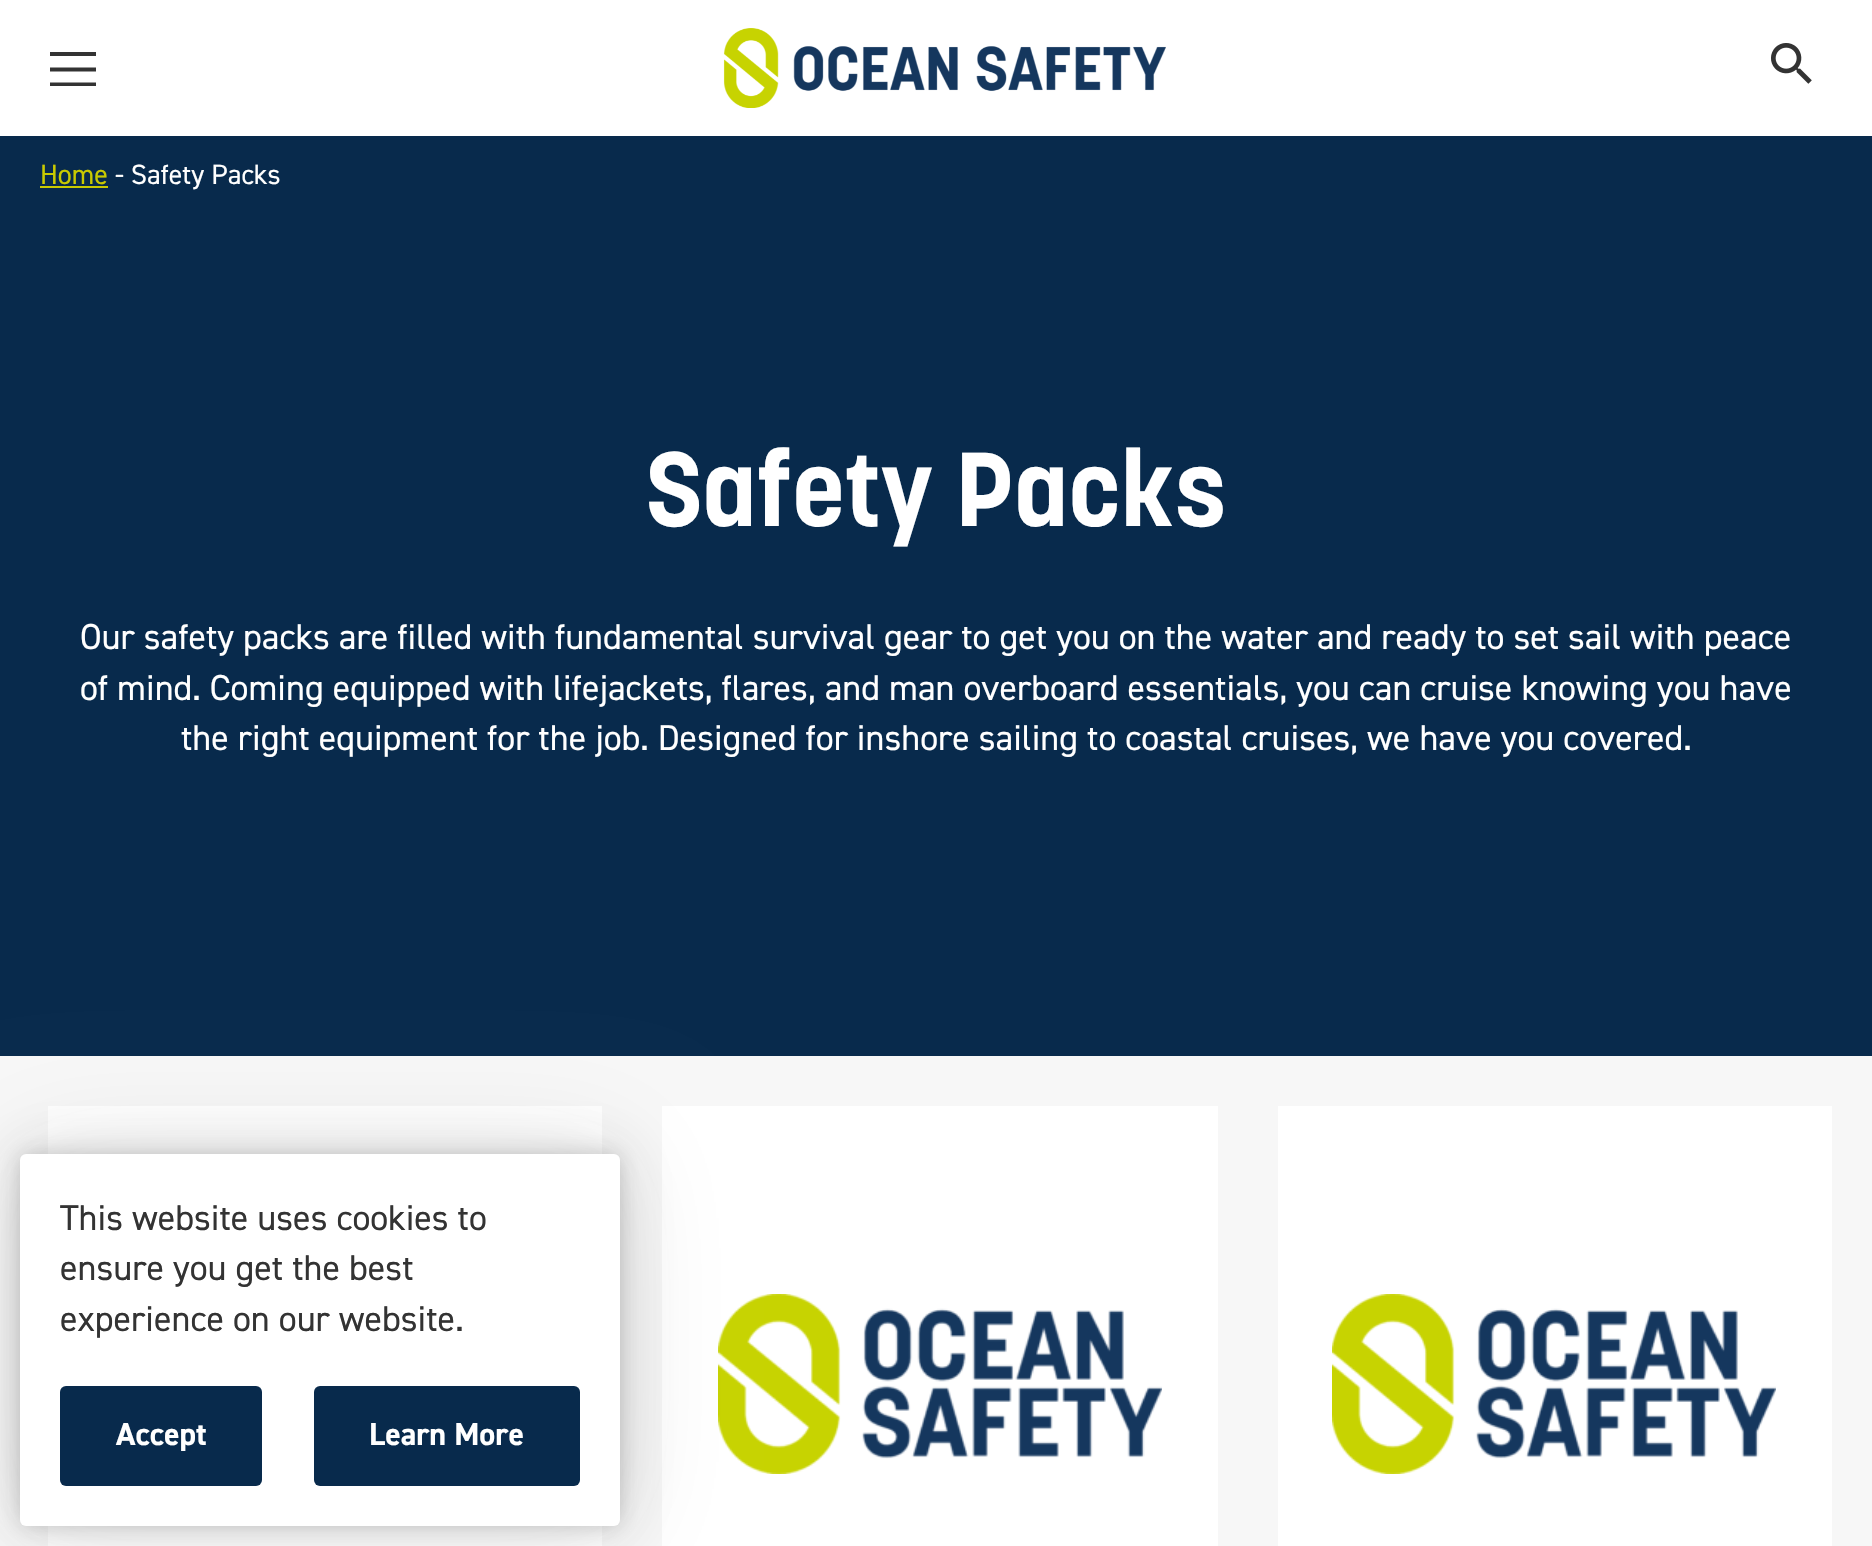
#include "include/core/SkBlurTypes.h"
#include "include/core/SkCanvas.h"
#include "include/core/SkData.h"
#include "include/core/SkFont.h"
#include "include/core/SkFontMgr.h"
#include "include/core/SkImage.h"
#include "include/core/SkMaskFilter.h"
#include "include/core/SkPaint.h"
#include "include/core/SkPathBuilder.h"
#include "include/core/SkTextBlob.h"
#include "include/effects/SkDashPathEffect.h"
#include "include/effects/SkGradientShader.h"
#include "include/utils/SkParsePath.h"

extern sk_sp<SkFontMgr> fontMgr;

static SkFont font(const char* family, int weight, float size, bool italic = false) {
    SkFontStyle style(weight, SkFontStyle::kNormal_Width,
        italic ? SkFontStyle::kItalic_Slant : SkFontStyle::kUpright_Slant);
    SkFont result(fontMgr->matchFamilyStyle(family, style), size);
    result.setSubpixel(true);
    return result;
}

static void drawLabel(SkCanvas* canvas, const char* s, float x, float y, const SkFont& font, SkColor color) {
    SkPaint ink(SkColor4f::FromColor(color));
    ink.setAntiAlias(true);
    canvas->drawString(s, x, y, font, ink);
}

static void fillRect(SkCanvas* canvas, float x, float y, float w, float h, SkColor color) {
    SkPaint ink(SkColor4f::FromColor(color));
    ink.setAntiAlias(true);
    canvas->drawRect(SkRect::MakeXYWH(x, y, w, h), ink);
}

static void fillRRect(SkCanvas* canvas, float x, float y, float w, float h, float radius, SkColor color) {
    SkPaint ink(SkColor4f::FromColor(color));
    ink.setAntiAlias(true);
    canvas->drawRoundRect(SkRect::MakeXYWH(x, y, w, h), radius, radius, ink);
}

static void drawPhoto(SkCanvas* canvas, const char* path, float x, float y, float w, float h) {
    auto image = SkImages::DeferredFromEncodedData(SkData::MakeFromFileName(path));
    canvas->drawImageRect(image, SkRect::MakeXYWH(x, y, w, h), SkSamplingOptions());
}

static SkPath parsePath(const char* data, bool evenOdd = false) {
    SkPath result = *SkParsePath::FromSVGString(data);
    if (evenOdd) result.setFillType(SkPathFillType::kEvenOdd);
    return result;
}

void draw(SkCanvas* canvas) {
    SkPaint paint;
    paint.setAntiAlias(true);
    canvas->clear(0xFFF7F7F7);
    fillRect(canvas, 0, 0, 1872, 136, 0xFFFFFFFF);
    fillRect(canvas, 50, 52, 46, 4, 0xFF333333);
    paint.setStroke(true);
    paint.setStrokeWidth(4);
    paint.setColor(0xFF333333);
    canvas->drawPath(parsePath("M50 69.5H96"), paint);
    canvas->save();
    canvas->clipRect(SkRect::MakeXYWH(50, 52, 46, 34));
    canvas->drawPath(parsePath("M50 84.5H96"), paint);
    canvas->restore();
    drawPhoto(canvas, "assets/img1.png", 723, 28, 443, 80);
    drawPhoto(canvas, "assets/img2.png", 1771, 43, 41, 41);
    fillRect(canvas, 0, 136, 1872, 920, 0xFF082A4C);
    SkFont font1 = font("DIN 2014", 400, 28);
    drawLabel(canvas, "Home", 40, 184, font1, 0xFFC9CA00);
    fillRect(canvas, 40, 186, 68, 2, 0xFFC9CA00);
    drawLabel(canvas, "- Safety Packs", 115, 184, font1, 0xFFFFFFFF);
    SkFont font2 = font("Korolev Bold", 700, 104);
    drawLabel(canvas, "Safety Packs", 646, 526, font2, 0xFFFFFFFF);
    SkFont font3 = font("DIN 2014", 400, 36);
    drawLabel(canvas, "Our safety packs are filled with fundamental survival gear to get you on the water and ready to set sail with peace", 80, 649, font3, 0xFFFFFFFF);
    drawLabel(canvas, "of mind. Coming equipped with lifejackets, flares, and man overboard essentials, you can cruise knowing you have", 80, 700, font3, 0xFFFFFFFF);
    drawLabel(canvas, "the right equipment for the job. Designed for inshore sailing to coastal cruises, we have you covered.", 181, 750, font3, 0xFFFFFFFF);
    fillRect(canvas, 48, 1106, 554, 440, 0xFFFFFFFF);
    fillRect(canvas, 662, 1106, 556, 440, 0xFFFFFFFF);
    drawPhoto(canvas, "assets/img3.png", 718, 1294, 444, 180);
    fillRect(canvas, 1278, 1106, 554, 440, 0xFFFFFFFF);
    drawPhoto(canvas, "assets/img3.png", 1332, 1294, 444, 180);
    paint.setStroke(false);
    paint.setColor(0x1A333333);
    paint.setMaskFilter(SkMaskFilter::MakeBlur(kNormal_SkBlurStyle, 60));
    canvas->drawRoundRect(SkRect::MakeXYWH(20, 1154, 600, 372), 6, 6, paint);
    paint.setMaskFilter(nullptr);
    paint.setColor(0x26333333);
    paint.setMaskFilter(SkMaskFilter::MakeBlur(kNormal_SkBlurStyle, 30));
    canvas->drawRoundRect(SkRect::MakeXYWH(20, 1154, 600, 372), 6, 6, paint);
    paint.setMaskFilter(nullptr);
    paint.setColor(0x33333333);
    paint.setMaskFilter(SkMaskFilter::MakeBlur(kNormal_SkBlurStyle, 10));
    canvas->drawRoundRect(SkRect::MakeXYWH(20, 1154, 600, 372), 6, 6, paint);
    paint.setMaskFilter(nullptr);
    fillRRect(canvas, 20, 1154, 600, 372, 6, 0xFFFFFFFF);
    drawLabel(canvas, "This website uses cookies to", 60, 1230, font3, 0xFF333333);
    drawLabel(canvas, "ensure you get the best", 60, 1280, font3, 0xFF333333);
    drawLabel(canvas, "experience on our website.", 60, 1331, font3, 0xFF333333);
    fillRRect(canvas, 60, 1386, 202, 100, 6, 0xFF082A4C);
    SkFont font4 = font("DIN 2014", 700, 32);
    drawLabel(canvas, "Accept", 116, 1445, font4, 0xFFFFFFFF);
    fillRRect(canvas, 314, 1386, 266, 100, 6, 0xFF082A4C);
    drawLabel(canvas, "Learn More", 369, 1445, font4, 0xFFFFFFFF);
}
